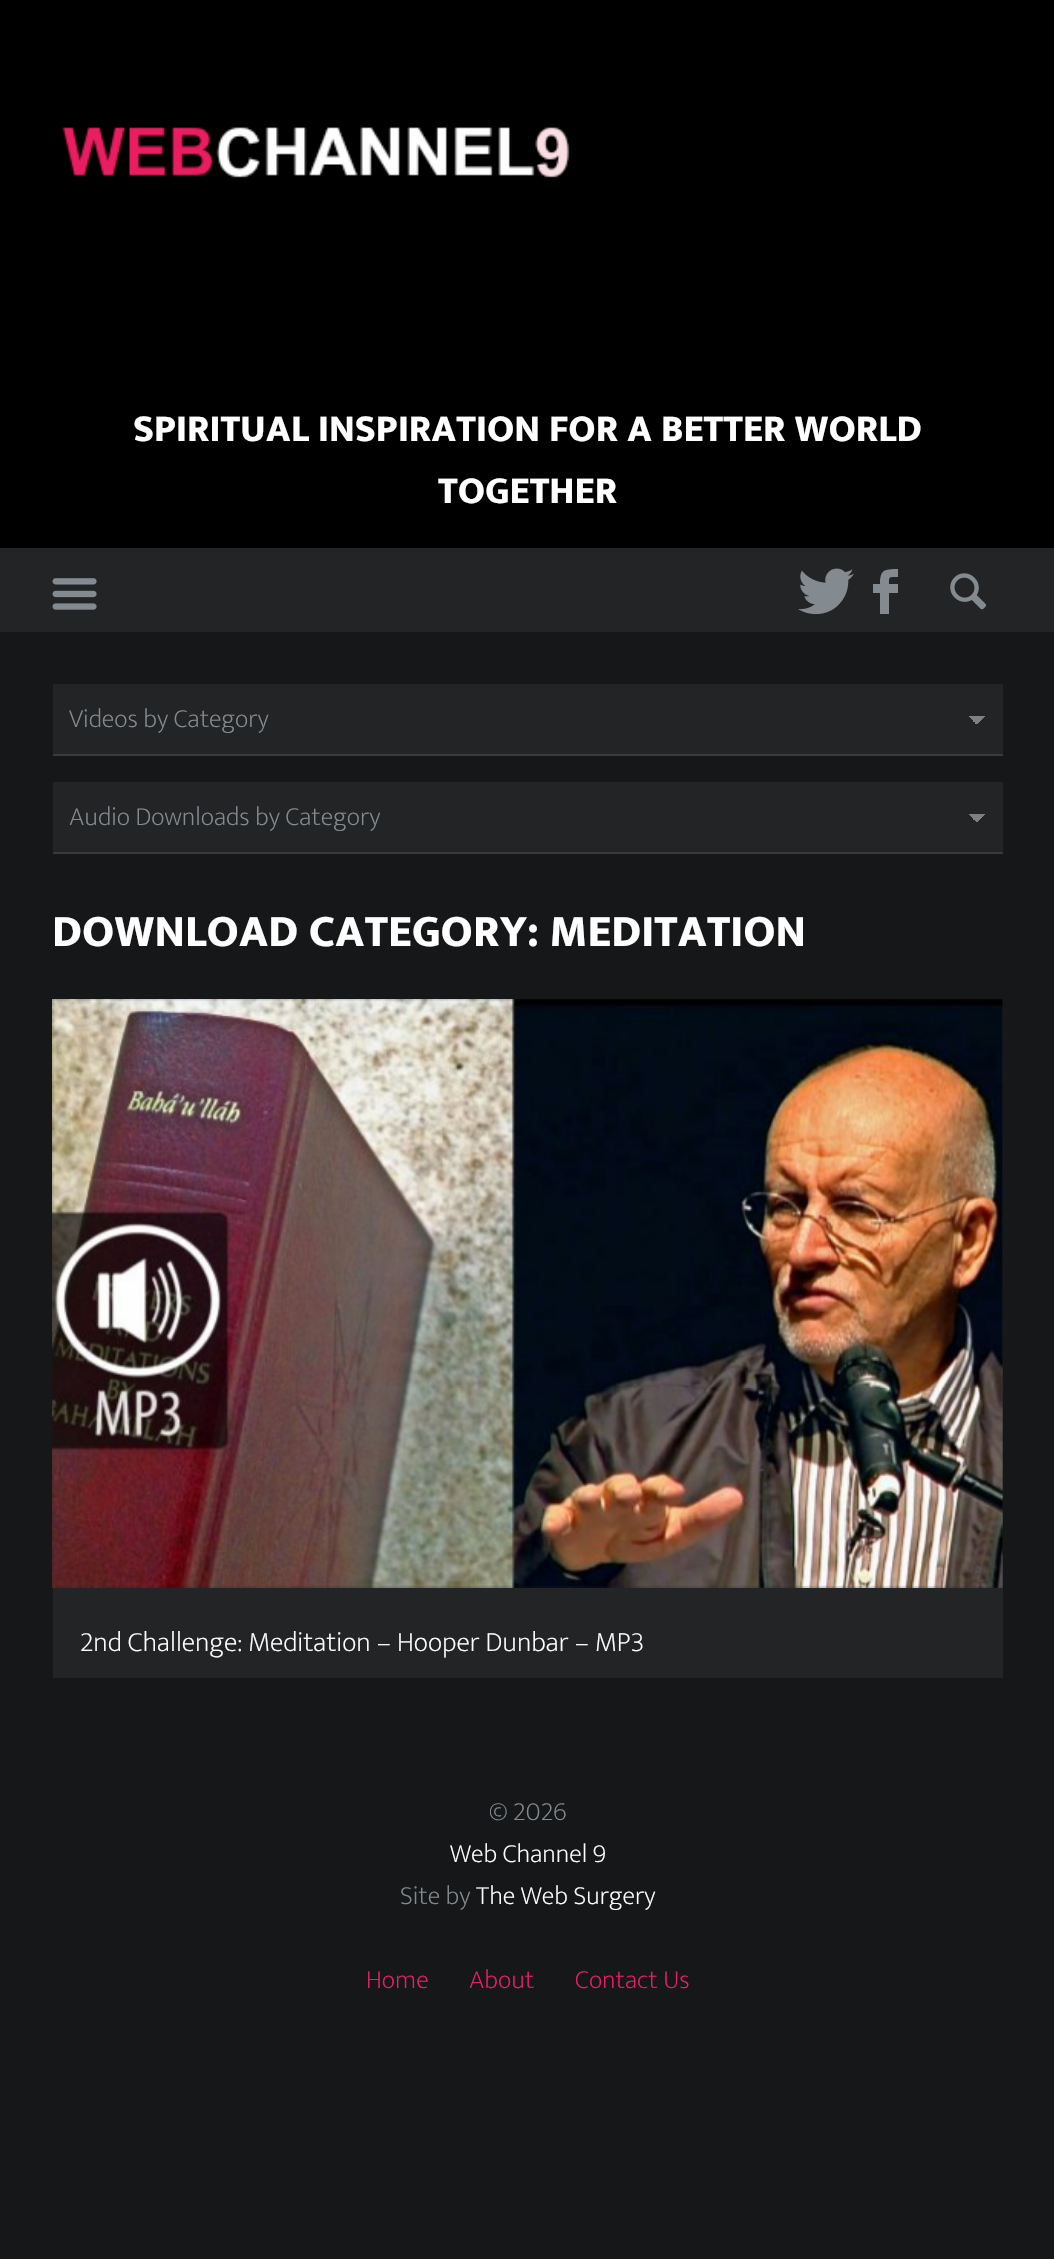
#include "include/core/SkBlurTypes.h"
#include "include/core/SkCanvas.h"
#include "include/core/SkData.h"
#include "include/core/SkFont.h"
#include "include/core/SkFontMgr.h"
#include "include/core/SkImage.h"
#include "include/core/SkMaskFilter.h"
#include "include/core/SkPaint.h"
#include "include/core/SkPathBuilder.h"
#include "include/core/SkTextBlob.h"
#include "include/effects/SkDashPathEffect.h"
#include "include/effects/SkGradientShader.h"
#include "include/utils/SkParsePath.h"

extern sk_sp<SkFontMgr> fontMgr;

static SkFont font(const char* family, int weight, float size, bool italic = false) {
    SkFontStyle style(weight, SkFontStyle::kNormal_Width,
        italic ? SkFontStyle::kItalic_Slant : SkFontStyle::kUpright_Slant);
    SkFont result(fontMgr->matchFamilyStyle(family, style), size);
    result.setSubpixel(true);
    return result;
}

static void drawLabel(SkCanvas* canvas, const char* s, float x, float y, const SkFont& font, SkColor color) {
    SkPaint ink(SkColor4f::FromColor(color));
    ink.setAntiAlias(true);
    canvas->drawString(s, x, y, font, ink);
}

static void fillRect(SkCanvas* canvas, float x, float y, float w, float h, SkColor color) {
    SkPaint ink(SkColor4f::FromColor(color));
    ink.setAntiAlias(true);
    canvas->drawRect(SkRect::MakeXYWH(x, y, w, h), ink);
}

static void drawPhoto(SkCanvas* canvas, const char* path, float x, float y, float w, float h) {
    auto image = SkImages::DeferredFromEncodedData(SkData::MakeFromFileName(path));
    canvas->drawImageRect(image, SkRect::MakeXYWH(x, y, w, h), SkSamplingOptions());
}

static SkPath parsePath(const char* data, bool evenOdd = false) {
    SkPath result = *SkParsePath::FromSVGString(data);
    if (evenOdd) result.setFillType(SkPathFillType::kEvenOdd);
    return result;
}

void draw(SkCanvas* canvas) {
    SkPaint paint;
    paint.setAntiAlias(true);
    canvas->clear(0xFF161718);
    fillRect(canvas, 0, 0, 1054, 548, 0xFF000000);
    drawPhoto(canvas, "assets/img1.png", 62, 127, 508, 51);
    SkFont font1 = font("Ek Mukta", 800, 38.5f);
    drawLabel(canvas, "SPIRITUAL INSPIRATION FOR A BETTER WORLD", 133, 441, font1, 0xFFFFFFFF);
    drawLabel(canvas, "TOGETHER", 438, 503, font1, 0xFFFFFFFF);
    fillRect(canvas, 0, 548, 1054, 84, 0xFF232425);
    drawPhoto(canvas, "assets/img2.png", 52, 578, 45, 32);
    drawPhoto(canvas, "assets/img3.png", 798, 568, 56, 47);
    paint.setColor(0xFF838B91);
    canvas->drawPath(parsePath("M873 593V584H880C880 570 884 569 898 569V577C889 577 889 576 889 584H898V593H889V614H880V593Z"), paint);
    drawPhoto(canvas, "assets/img4.png", 950, 573, 37, 37);
    fillRect(canvas, 53, 684, 950, 70, 0xFF232425);
    {
        const SkColor colors[] = {0xFF808080, 0xFF232425};
        const float stops[] = {0.5f, 0.5f};
        const SkPoint ends[] = {{977, 716}, {985, 725}};
        paint.setShader(SkGradientShader::MakeLinear(ends, colors, stops, 2, SkTileMode::kClamp));
        paint.setAlpha(255);
    }
    canvas->drawRect(SkRect::MakeXYWH(977, 716, 8, 9), paint);
    {
        const SkColor colors[] = {0xFF232425, 0xFF808080};
        const float stops[] = {0.5f, 0.5f};
        const SkPoint ends[] = {{968, 725}, {977, 716}};
        paint.setShader(SkGradientShader::MakeLinear(ends, colors, stops, 2, SkTileMode::kClamp));
        paint.setAlpha(255);
    }
    canvas->drawRect(SkRect::MakeXYWH(968, 716, 9, 8), paint);
    fillRect(canvas, 53, 754, 950, 2, 0xFF393A3B);
    SkFont font2 = font("Ek Mukta", 200, 26.25f);
    drawLabel(canvas, "Videos by Category", 69, 727, font2, 0xFF838B91);
    fillRect(canvas, 53, 782, 950, 70, 0xFF232425);
    {
        const SkColor colors[] = {0xFF808080, 0xFF232425};
        const float stops[] = {0.5f, 0.5f};
        const SkPoint ends[] = {{977, 814}, {985, 823}};
        paint.setShader(SkGradientShader::MakeLinear(ends, colors, stops, 2, SkTileMode::kClamp));
        paint.setAlpha(255);
    }
    canvas->drawRect(SkRect::MakeXYWH(977, 814, 8, 9), paint);
    {
        const SkColor colors[] = {0xFF232425, 0xFF808080};
        const float stops[] = {0.5f, 0.5f};
        const SkPoint ends[] = {{968, 823}, {977, 814}};
        paint.setShader(SkGradientShader::MakeLinear(ends, colors, stops, 2, SkTileMode::kClamp));
        paint.setAlpha(255);
    }
    canvas->drawRect(SkRect::MakeXYWH(968, 814, 9, 8), paint);
    fillRect(canvas, 53, 852, 950, 2, 0xFF393A3B);
    drawLabel(canvas, "Audio Downloads by Category", 69, 825, font2, 0xFF838B91);
    SkFont font3 = font("Ek Mukta", 800, 45.5f);
    drawLabel(canvas, "DOWNLOAD CATEGORY: MEDITATION", 52, 946, font3, 0xFFFFFFFF);
    fillRect(canvas, 53, 999, 950, 679, 0xFF232425);
    drawPhoto(canvas, "assets/img5.png", 52, 999, 951, 589);
    SkFont font4 = font("Ek Mukta", 200, 28);
    drawLabel(canvas, "2nd Challenge: Meditation – Hooper Dunbar – MP3", 80, 1651, font4, 0xFFFFFFFF);
    drawLabel(canvas, "© 2026", 489, 1820, font2, 0xFF838B91);
    drawLabel(canvas, "Web Channel 9", 450, 1862, font2, 0xFFFFFFFF);
    drawLabel(canvas, "Site by", 400, 1904, font2, 0xFF838B91);
    drawLabel(canvas, "The Web Surgery", 476, 1904, font2, 0xFFFFFFFF);
    drawLabel(canvas, "Home", 366, 1988, font2, 0xFFE91E63);
    drawLabel(canvas, "About", 469, 1988, font2, 0xFFE91E63);
    drawLabel(canvas, "Contact Us", 575, 1988, font2, 0xFFE91E63);
}
